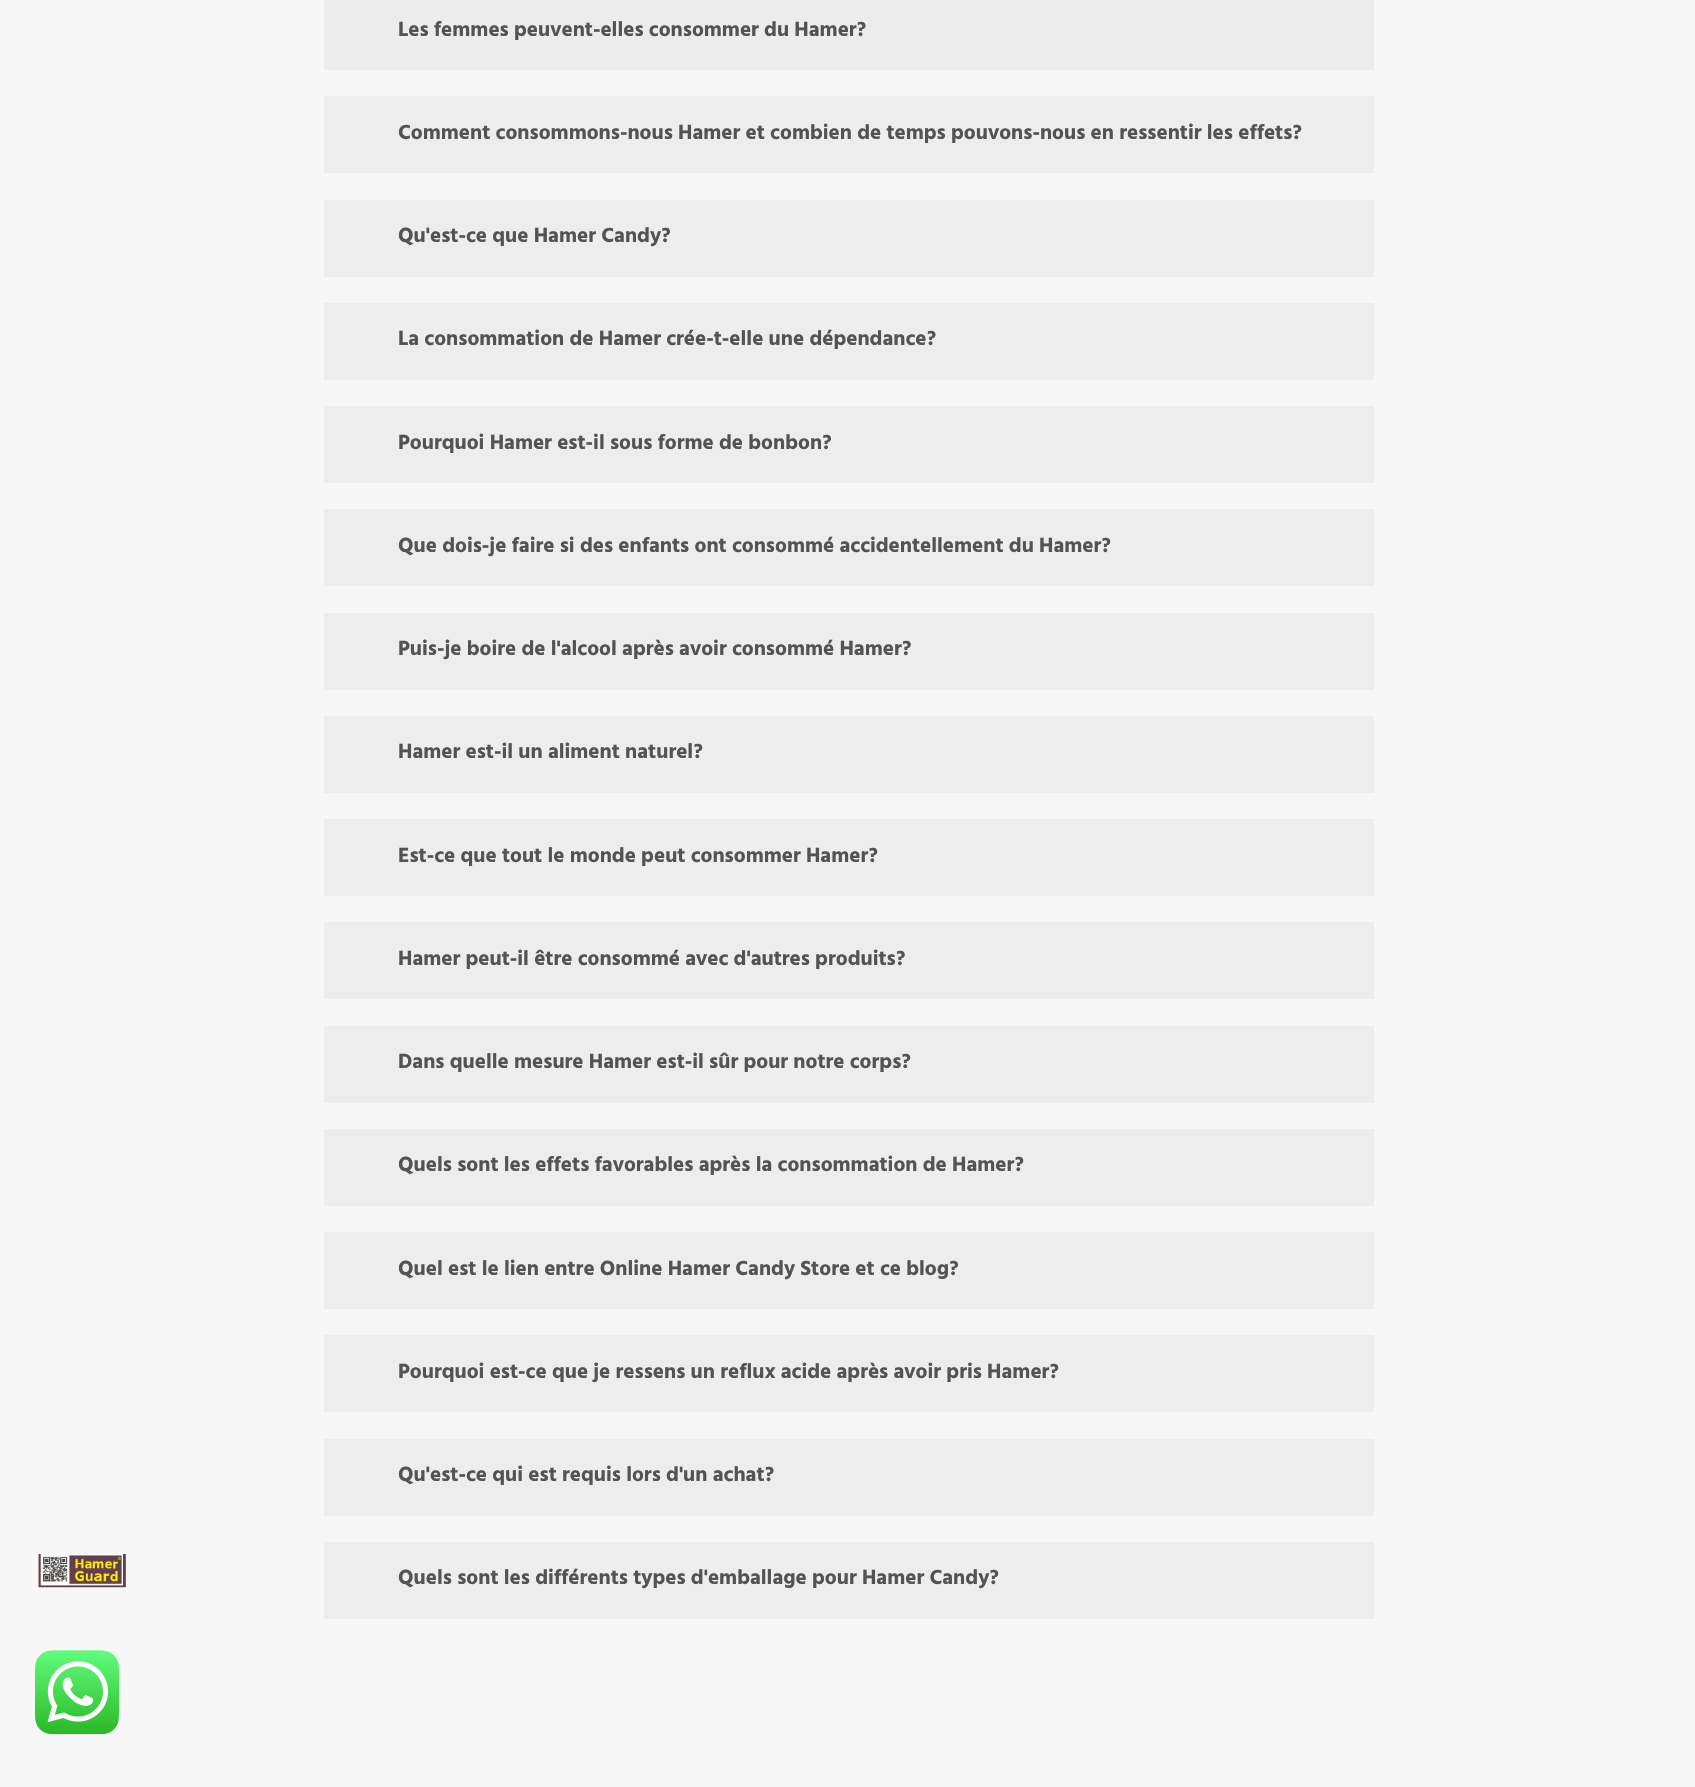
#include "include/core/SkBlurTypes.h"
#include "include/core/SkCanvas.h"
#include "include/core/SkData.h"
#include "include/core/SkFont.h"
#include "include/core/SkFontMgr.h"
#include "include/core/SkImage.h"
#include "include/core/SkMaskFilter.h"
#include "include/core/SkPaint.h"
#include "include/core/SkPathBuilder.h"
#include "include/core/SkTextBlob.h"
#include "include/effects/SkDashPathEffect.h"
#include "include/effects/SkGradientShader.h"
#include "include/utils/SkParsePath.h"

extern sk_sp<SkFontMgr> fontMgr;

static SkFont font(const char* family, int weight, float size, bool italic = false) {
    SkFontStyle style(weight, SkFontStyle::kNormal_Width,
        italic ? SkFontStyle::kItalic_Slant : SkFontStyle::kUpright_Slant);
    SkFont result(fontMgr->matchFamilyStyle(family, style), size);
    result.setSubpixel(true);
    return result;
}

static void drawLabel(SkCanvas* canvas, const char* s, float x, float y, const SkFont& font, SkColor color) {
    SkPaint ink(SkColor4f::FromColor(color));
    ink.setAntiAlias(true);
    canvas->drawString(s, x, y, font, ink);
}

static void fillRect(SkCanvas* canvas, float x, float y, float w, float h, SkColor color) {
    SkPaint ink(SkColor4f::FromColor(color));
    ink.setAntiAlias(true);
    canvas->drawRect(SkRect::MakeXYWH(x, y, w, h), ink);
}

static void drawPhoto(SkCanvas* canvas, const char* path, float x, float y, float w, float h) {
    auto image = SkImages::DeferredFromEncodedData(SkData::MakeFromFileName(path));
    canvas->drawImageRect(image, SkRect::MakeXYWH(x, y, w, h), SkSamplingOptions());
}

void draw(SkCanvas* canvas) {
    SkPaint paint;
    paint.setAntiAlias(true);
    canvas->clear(0xFFF7F7F7);
    drawPhoto(canvas, "assets/img1.png", 38, 1554, 88, 34);
    fillRect(canvas, 324, 0, 1050, 70, 0xFFECECEC);
    SkFont font1 = font("Hind", 700, 21);
    drawLabel(canvas, "Les femmes peuvent-elles consommer du Hamer?", 398, 36, font1, 0xFF535353);
    fillRect(canvas, 324, 96, 1050, 77, 0xFFEDEDED);
    drawLabel(canvas, "Comment consommons-nous Hamer et combien de temps pouvons-nous en ressentir les effets?", 398, 139, font1, 0xFF535353);
    fillRect(canvas, 324, 200, 1050, 77, 0xFFEDEDED);
    drawLabel(canvas, "Qu'est-ce que Hamer Candy?", 398, 242, font1, 0xFF535353);
    fillRect(canvas, 324, 303, 1050, 77, 0xFFEDEDED);
    drawLabel(canvas, "La consommation de Hamer crée-t-elle une dépendance?", 398, 345, font1, 0xFF535353);
    fillRect(canvas, 324, 406, 1050, 77, 0xFFEDEDED);
    drawLabel(canvas, "Pourquoi Hamer est-il sous forme de bonbon?", 398, 449, font1, 0xFF535353);
    fillRect(canvas, 324, 509, 1050, 77, 0xFFEDEDED);
    drawLabel(canvas, "Que dois-je faire si des enfants ont consommé accidentellement du Hamer?", 398, 552, font1, 0xFF535353);
    fillRect(canvas, 324, 613, 1050, 77, 0xFFEDEDED);
    drawLabel(canvas, "Puis-je boire de l'alcool après avoir consommé Hamer?", 398, 655, font1, 0xFF535353);
    fillRect(canvas, 324, 716, 1050, 77, 0xFFEDEDED);
    drawLabel(canvas, "Hamer est-il un aliment naturel?", 398, 758, font1, 0xFF535353);
    fillRect(canvas, 324, 819, 1050, 77, 0xFFEDEDED);
    drawLabel(canvas, "Est-ce que tout le monde peut consommer Hamer?", 398, 862, font1, 0xFF535353);
    fillRect(canvas, 324, 922, 1050, 77, 0xFFEDEDED);
    drawLabel(canvas, "Hamer peut-il être consommé avec d'autres produits?", 398, 965, font1, 0xFF535353);
    fillRect(canvas, 324, 1026, 1050, 77, 0xFFEDEDED);
    drawLabel(canvas, "Dans quelle mesure Hamer est-il sûr pour notre corps?", 398, 1068, font1, 0xFF535353);
    fillRect(canvas, 324, 1129, 1050, 77, 0xFFEDEDED);
    drawLabel(canvas, "Quels sont les effets favorables après la consommation de Hamer?", 398, 1171, font1, 0xFF535353);
    fillRect(canvas, 324, 1232, 1050, 77, 0xFFEDEDED);
    drawLabel(canvas, "Quel est le lien entre Online Hamer Candy Store et ce blog?", 398, 1275, font1, 0xFF535353);
    fillRect(canvas, 324, 1335, 1050, 77, 0xFFEDEDED);
    drawLabel(canvas, "Pourquoi est-ce que je ressens un reflux acide après avoir pris Hamer?", 398, 1378, font1, 0xFF535353);
    fillRect(canvas, 324, 1439, 1050, 77, 0xFFEDEDED);
    drawLabel(canvas, "Qu'est-ce qui est requis lors d'un achat?", 398, 1481, font1, 0xFF535353);
    fillRect(canvas, 324, 1542, 1050, 77, 0xFFEDEDED);
    drawLabel(canvas, "Quels sont les différents types d'emballage pour Hamer Candy?", 398, 1584, font1, 0xFF535353);
    drawPhoto(canvas, "assets/img2.png", 35, 1650, 84, 84);
}
